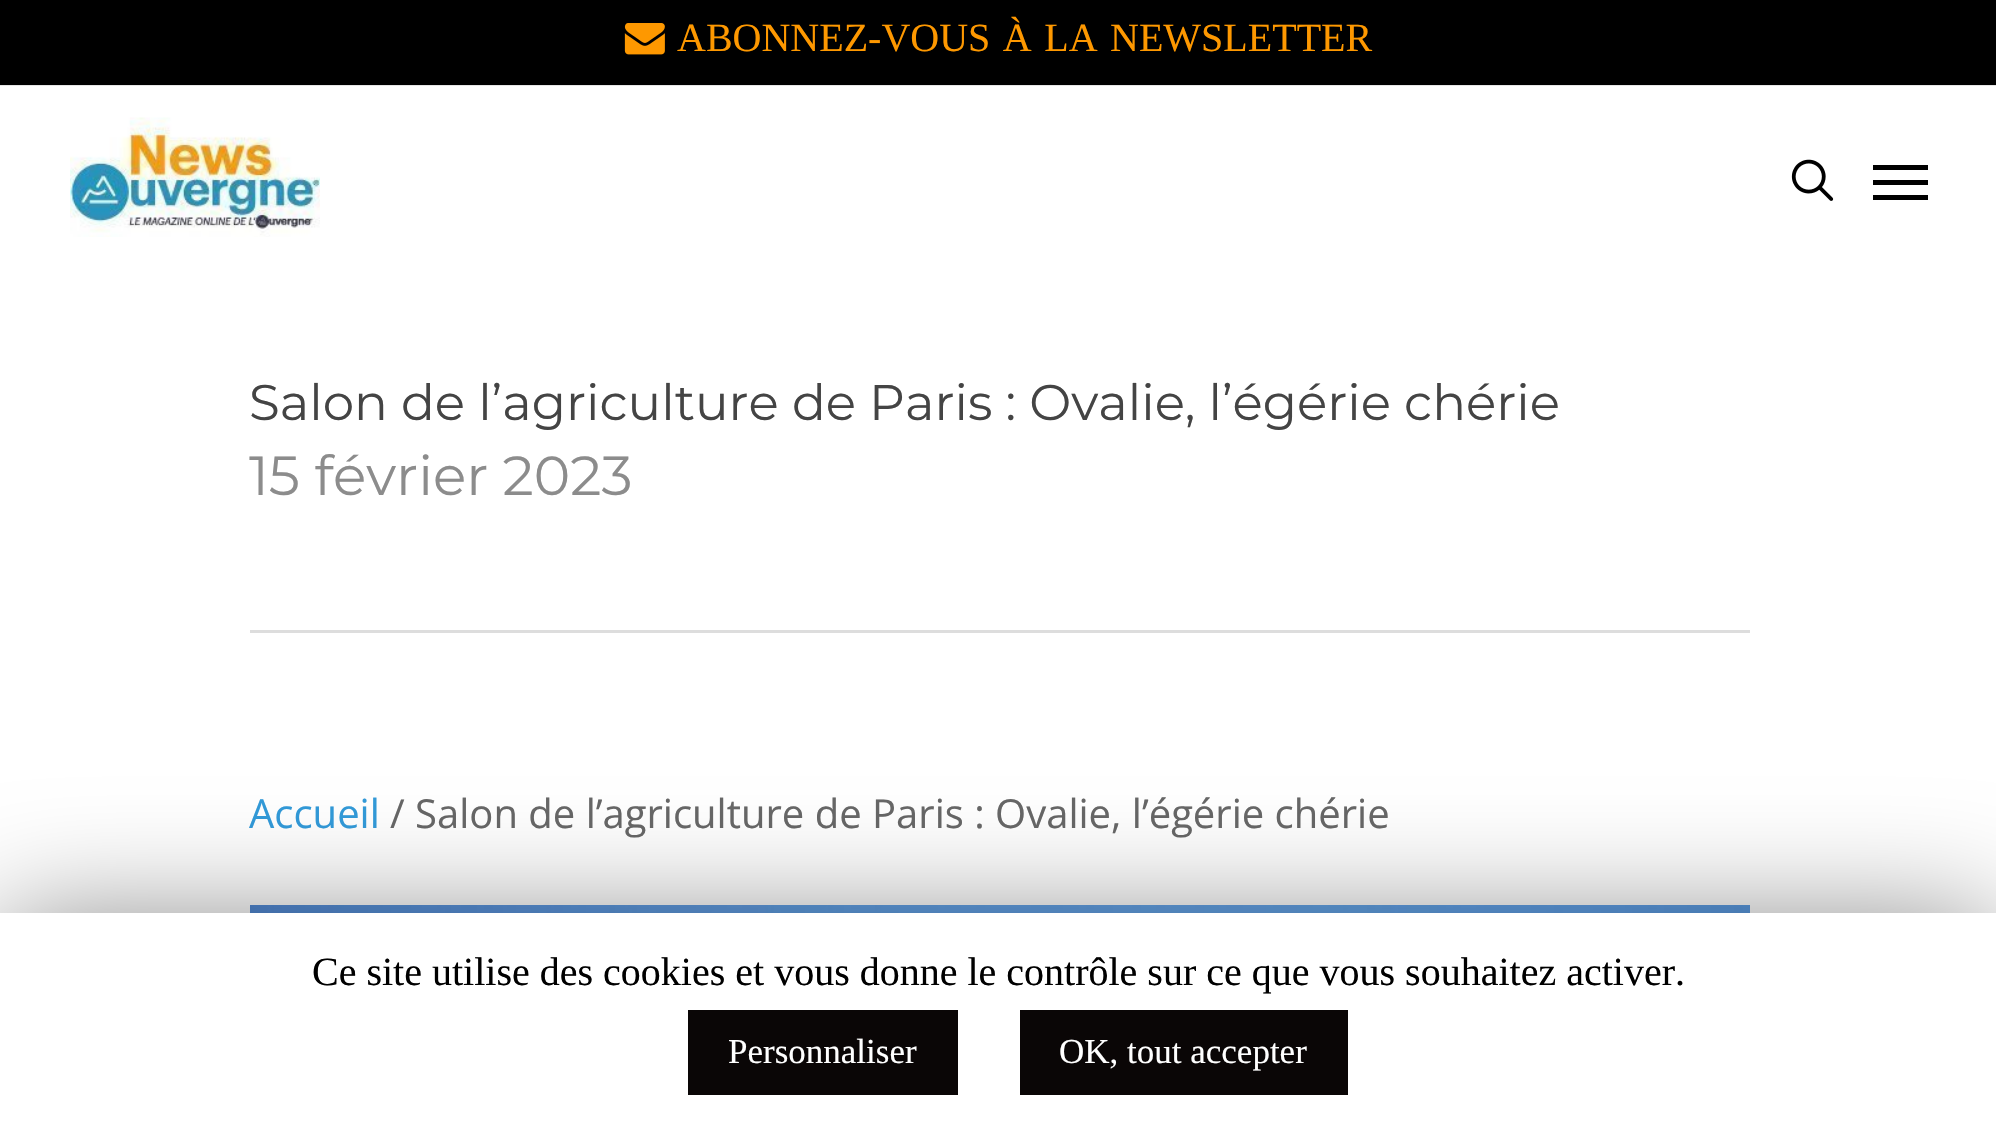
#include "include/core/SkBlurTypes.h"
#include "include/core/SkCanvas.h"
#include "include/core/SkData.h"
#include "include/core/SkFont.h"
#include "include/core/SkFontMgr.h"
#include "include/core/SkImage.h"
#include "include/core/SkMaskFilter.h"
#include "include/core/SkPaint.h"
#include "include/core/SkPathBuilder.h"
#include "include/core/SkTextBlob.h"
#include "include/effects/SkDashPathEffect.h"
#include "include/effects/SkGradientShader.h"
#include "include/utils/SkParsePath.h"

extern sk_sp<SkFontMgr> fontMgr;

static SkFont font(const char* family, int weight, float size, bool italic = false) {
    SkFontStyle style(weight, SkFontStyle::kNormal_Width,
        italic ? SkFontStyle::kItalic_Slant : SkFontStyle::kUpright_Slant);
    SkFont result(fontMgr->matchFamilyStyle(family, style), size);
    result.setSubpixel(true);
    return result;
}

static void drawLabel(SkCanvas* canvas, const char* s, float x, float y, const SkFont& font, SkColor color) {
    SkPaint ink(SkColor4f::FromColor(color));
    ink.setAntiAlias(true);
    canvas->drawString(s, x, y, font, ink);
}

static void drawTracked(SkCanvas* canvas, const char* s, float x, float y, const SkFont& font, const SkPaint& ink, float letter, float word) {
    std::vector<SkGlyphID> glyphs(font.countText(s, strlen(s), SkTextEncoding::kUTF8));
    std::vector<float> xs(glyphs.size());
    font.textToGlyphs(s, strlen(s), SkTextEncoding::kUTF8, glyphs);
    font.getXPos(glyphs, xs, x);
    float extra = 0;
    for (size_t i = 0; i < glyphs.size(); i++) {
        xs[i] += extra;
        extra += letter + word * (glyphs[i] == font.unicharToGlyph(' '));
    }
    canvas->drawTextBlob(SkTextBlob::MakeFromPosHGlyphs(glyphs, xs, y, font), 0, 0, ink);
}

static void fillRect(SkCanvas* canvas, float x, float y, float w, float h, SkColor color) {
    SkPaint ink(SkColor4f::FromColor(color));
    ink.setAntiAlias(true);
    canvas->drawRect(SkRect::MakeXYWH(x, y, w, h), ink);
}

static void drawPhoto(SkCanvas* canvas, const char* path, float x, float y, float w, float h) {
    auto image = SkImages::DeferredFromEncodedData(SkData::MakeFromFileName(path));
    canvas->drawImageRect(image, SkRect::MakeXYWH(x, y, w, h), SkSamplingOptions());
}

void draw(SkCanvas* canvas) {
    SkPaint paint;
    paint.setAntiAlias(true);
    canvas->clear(0xFFFFFFFF);
    fillRect(canvas, 0, 85, 1996, 1, 0xFFE6E6E6);
    fillRect(canvas, 0, 0, 1996, 85, 0xFF000000);
    drawPhoto(canvas, "assets/img1.png", 624, 23, 41, 32);
    SkFont font1 = font("Liberation Serif", 400, 40);
    paint.setColor(0xFFFE9800);
    drawTracked(canvas, "ABONNEZ-VOUS À LA NEWSLETTER", 677, 51, font1, paint, 0, 2.5f);
    drawPhoto(canvas, "assets/img2.png", 70, 117, 250, 120);
    drawPhoto(canvas, "assets/img3.png", 1791, 159, 43, 42);
    fillRect(canvas, 1873, 165, 55, 5, 0xFF000000);
    fillRect(canvas, 1873, 195, 55, 5, 0xFF000000);
    fillRect(canvas, 1873, 180, 55, 5, 0xFF000000);
    fillRect(canvas, 250, 630, 1500, 3, 0xFFDDDDDD);
    SkFont font2 = font("Montserrat", 400, 50);
    drawLabel(canvas, "Salon de l’agriculture de Paris : Ovalie, l’égérie chérie", 249, 420, font2, 0xFF444444);
    SkFont font3 = font("Montserrat", 400, 55);
    drawLabel(canvas, "15 février 2023", 249, 495, font3, 0xFF8C8C8C);
    SkFont font4 = font("Open Sans", 400, 40);
    drawLabel(canvas, "Accueil", 249, 828, font4, 0xFF329AD9);
    drawLabel(canvas, "/ Salon de l’agriculture de Paris : Ovalie, l’égérie chérie", 390, 828, font4, 0xFF676767);
    drawPhoto(canvas, "assets/img4.png", 250, 905, 1500, 8);
    paint.setColor(0x80000000);
    paint.setMaskFilter(SkMaskFilter::MakeBlur(kNormal_SkBlurStyle, 62.5f));
    canvas->drawRect(SkRect::MakeXYWH(0, 925, 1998, 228), paint);
    paint.setMaskFilter(nullptr);
    fillRect(canvas, 0, 913, 1996, 226, 0xFFFFFFFF);
    drawLabel(canvas, "Ce site utilise des cookies et vous donne le contrôle sur ce que vous souhaitez activer.", 312, 985, font1, 0xFF000000);
    fillRect(canvas, 688, 1010, 270, 85, 0xFF0A0606);
    SkFont font5 = font("Liberation Serif", 400, 35);
    drawLabel(canvas, "Personnaliser", 728, 1063, font5, 0xFFFFFFFF);
    fillRect(canvas, 1020, 1010, 328, 85, 0xFF0A0606);
    drawLabel(canvas, "OK, tout accepter", 1059, 1063, font5, 0xFFFFFFFF);
}
